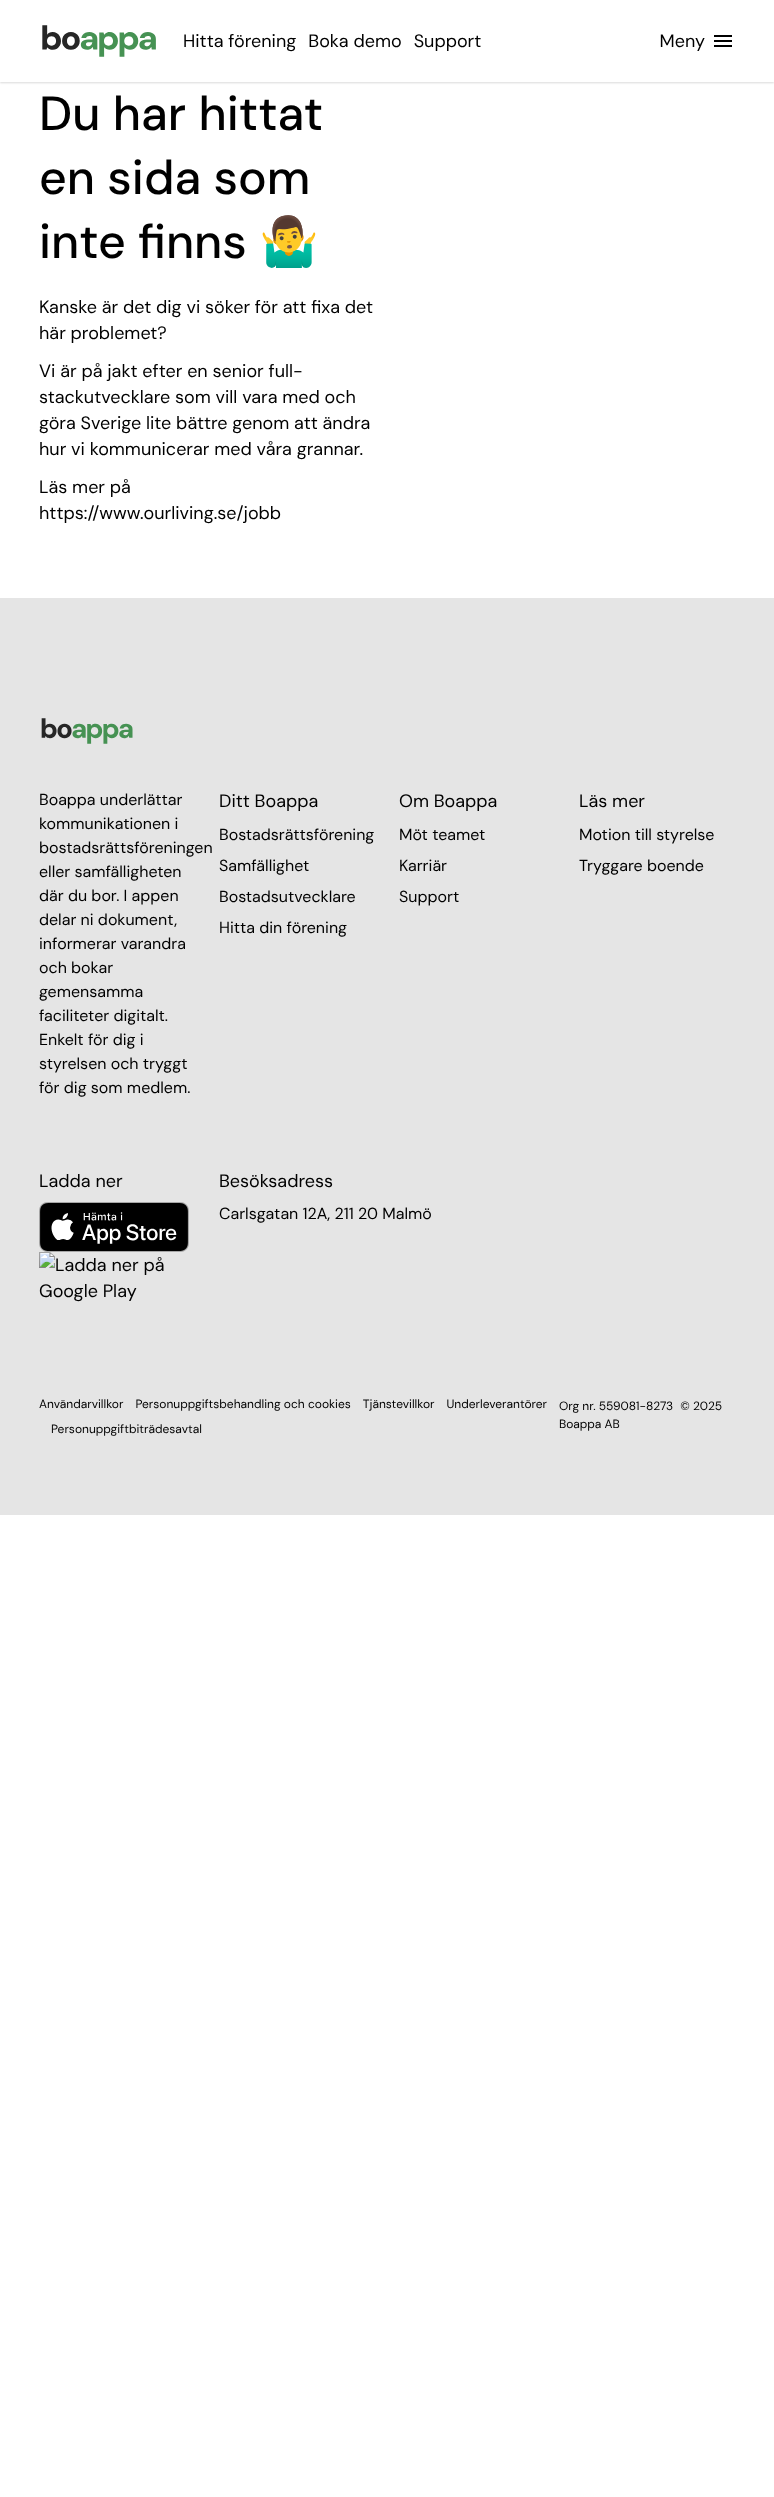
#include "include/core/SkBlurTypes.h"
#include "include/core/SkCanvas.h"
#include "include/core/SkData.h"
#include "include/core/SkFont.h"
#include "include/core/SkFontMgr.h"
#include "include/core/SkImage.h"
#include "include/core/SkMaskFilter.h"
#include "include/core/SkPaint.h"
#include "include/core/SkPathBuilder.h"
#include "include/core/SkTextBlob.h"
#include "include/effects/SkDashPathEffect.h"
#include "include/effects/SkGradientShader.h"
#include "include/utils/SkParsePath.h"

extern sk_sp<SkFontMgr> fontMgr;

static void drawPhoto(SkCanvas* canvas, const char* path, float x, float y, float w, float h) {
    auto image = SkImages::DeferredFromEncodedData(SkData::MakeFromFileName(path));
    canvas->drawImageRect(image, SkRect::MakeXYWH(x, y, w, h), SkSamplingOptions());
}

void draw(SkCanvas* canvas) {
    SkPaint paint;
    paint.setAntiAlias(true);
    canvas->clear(0xFFFFFFFF);
    drawPhoto(canvas, "assets/img1.png", 0, 25, 774, 1490);
}
